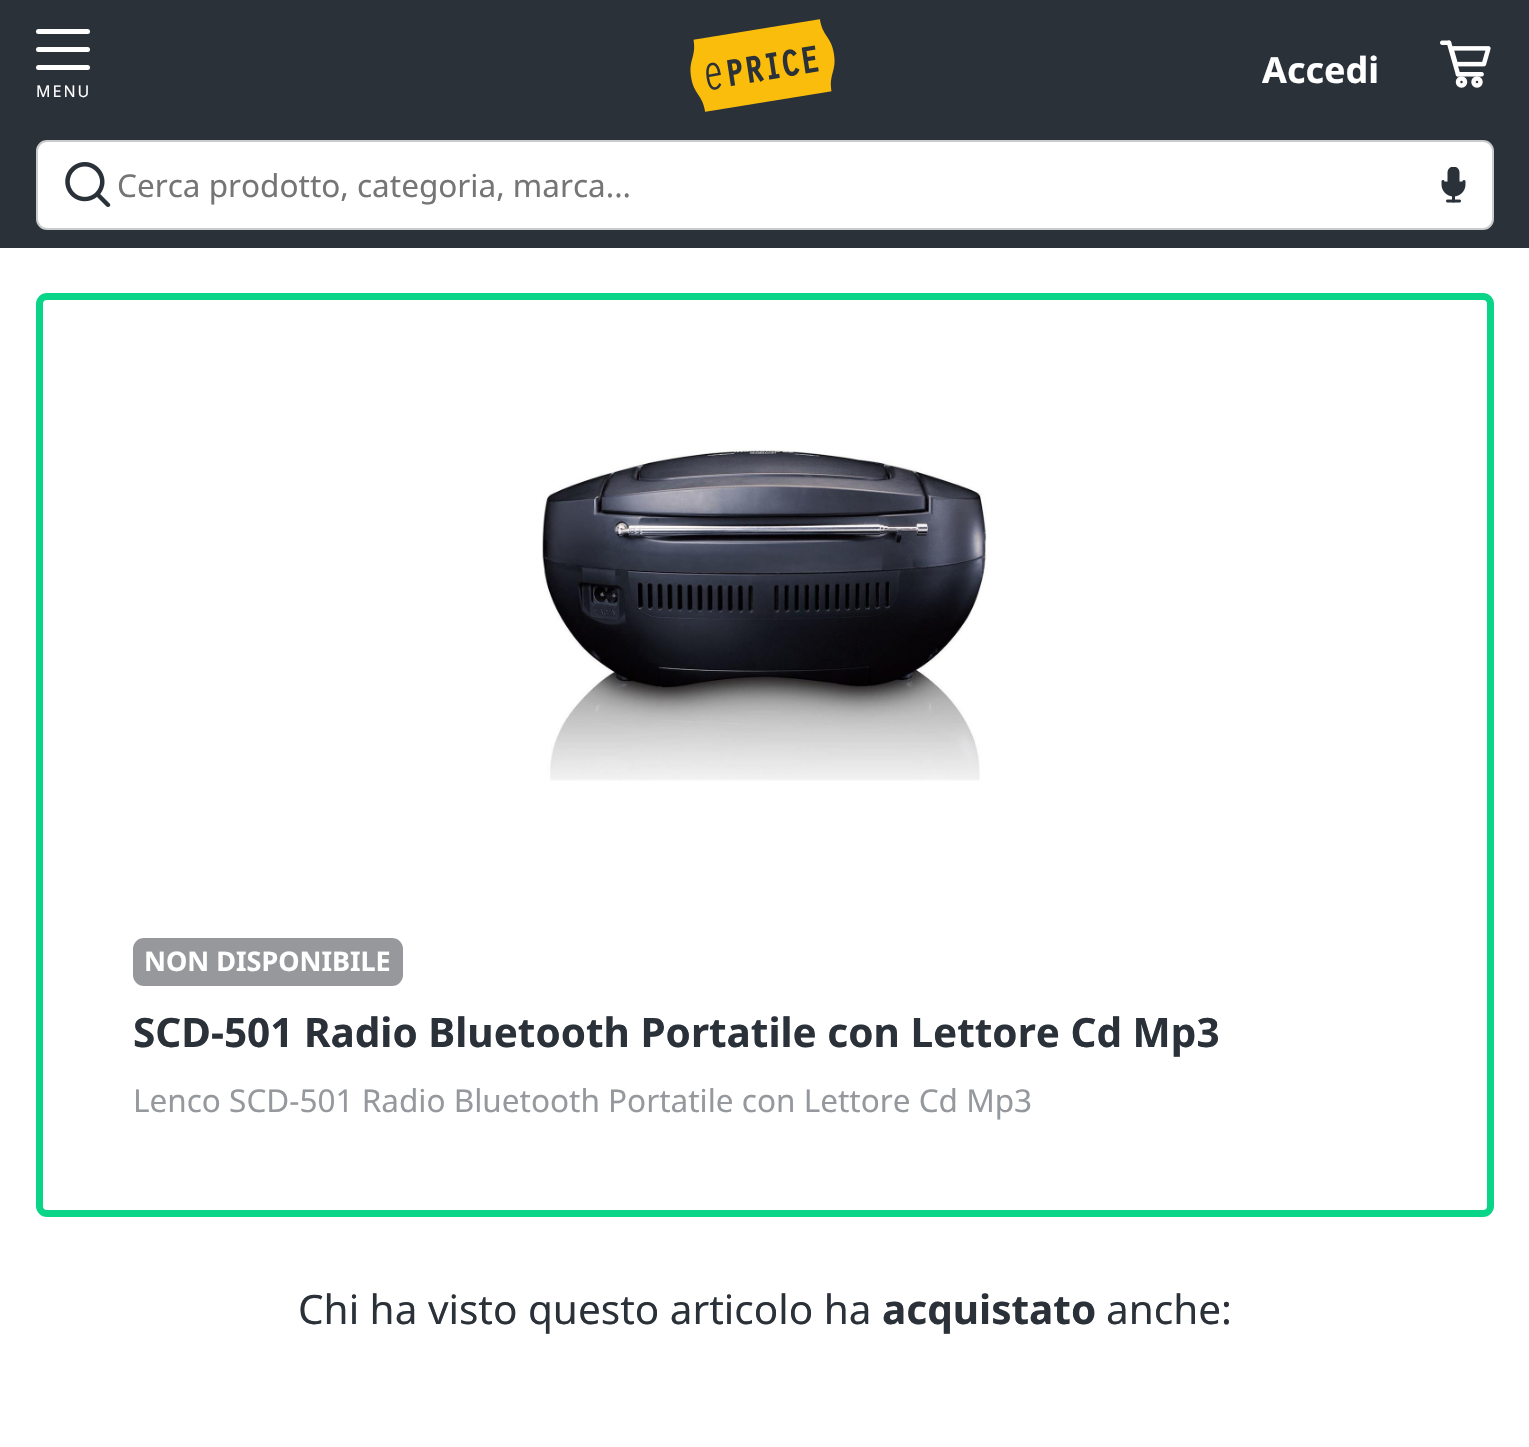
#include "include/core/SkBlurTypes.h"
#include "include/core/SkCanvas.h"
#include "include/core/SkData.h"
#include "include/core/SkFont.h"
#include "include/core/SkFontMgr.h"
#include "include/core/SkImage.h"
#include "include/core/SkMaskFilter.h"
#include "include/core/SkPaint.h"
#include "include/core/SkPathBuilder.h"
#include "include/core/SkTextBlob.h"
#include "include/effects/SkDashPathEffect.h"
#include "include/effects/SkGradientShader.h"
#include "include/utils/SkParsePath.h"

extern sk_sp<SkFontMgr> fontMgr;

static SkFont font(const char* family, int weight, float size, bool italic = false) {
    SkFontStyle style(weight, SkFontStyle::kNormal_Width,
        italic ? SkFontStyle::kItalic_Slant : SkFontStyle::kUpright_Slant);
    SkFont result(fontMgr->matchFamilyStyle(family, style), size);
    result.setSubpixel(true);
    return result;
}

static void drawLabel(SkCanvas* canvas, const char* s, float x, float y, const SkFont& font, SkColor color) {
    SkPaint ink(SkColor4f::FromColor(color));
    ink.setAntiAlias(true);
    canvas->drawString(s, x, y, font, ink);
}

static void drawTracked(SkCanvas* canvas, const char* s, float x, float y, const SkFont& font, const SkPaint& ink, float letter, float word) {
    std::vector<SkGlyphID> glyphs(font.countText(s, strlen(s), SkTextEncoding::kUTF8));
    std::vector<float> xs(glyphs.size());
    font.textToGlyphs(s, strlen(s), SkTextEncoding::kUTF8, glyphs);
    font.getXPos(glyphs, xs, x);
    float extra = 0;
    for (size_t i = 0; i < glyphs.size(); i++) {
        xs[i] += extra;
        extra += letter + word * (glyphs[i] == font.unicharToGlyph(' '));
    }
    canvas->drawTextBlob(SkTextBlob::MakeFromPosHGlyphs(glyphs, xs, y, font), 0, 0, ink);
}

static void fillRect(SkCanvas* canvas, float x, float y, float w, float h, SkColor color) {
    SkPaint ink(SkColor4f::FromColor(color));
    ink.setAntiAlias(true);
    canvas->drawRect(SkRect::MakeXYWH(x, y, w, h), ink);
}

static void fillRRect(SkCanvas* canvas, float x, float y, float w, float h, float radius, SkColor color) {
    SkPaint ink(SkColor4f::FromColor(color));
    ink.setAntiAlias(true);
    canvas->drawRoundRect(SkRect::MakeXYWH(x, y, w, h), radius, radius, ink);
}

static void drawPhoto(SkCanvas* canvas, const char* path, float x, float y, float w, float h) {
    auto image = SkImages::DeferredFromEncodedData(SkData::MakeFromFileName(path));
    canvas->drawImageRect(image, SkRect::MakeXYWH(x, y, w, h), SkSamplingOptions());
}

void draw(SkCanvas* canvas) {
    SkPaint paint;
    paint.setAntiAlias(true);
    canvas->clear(0xFFFFFFFF);
    fillRect(canvas, 0, 0, 1529, 248, 0xFF2B3139);
    drawPhoto(canvas, "assets/img1.png", 690, 19, 145, 93);
    SkFont font1 = font("Noto Sans", 700, 36);
    drawLabel(canvas, "Accedi", 1262, 83, font1, 0xFFFFFFFF);
    drawPhoto(canvas, "assets/img2.png", 1440, 40, 51, 48);
    fillRRect(canvas, 36, 47, 54, 5, 2.5f, 0xFFFFFFFF);
    fillRRect(canvas, 36, 29, 54, 5, 2.5f, 0xFFFFFFFF);
    fillRRect(canvas, 36, 65, 54, 5, 2.5f, 0xFFFFFFFF);
    SkFont font2 = font("Noto Sans", 400, 16);
    paint.setColor(0xFFFFFFFF);
    drawTracked(canvas, "MENU", 36, 97, font2, paint, 2, 0);
    canvas->drawRoundRect(SkRect::MakeXYWH(37, 141, 1456, 88), 10, 10, paint);
    paint.setStroke(true);
    paint.setStrokeWidth(2);
    paint.setColor(0xFFCACBCD);
    canvas->drawRoundRect(SkRect::MakeXYWH(37, 141, 1456, 88), 10, 10, paint);
    drawPhoto(canvas, "assets/img3.png", 65, 162, 46, 45);
    SkFont font3 = font("Noto Sans", 400, 31.5f);
    drawLabel(canvas, "Cerca prodotto, categoria, marca...", 117, 197, font3, 0xFF757575);
    drawPhoto(canvas, "assets/img4.png", 1441, 167, 25, 36);
    paint.setStrokeWidth(7);
    paint.setColor(0xFF0AD488);
    canvas->drawRoundRect(SkRect::MakeXYWH(39.5f, 296.5f, 1451, 917), 7.5f, 7.5f, paint);
    drawPhoto(canvas, "assets/img5.png", 542, 449, 445, 332);
    fillRRect(canvas, 133, 938, 270, 48, 11, 0xFF96989C);
    SkFont font4 = font("Noto Sans", 700, 27);
    drawLabel(canvas, "NON DISPONIBILE", 144, 971, font4, 0xFFFFFFFF);
    SkFont font5 = font("Noto Sans", 700, 40.5f);
    drawLabel(canvas, "SCD-501 Radio Bluetooth Portatile con Lettore Cd Mp3", 133, 1047, font5, 0xFF2B3139);
    drawLabel(canvas, "Lenco SCD-501 Radio Bluetooth Portatile con Lettore Cd Mp3", 133, 1112, font3, 0xFF95989C);
    SkFont font6 = font("Noto Sans", 400, 40.5f);
    drawLabel(canvas, "Chi ha visto questo articolo ha", 298, 1324, font6, 0xFF2B3139);
    drawLabel(canvas, "acquistato", 882, 1324, font5, 0xFF2B3139);
    drawLabel(canvas, "anche:", 1106, 1324, font6, 0xFF2B3139);
}
